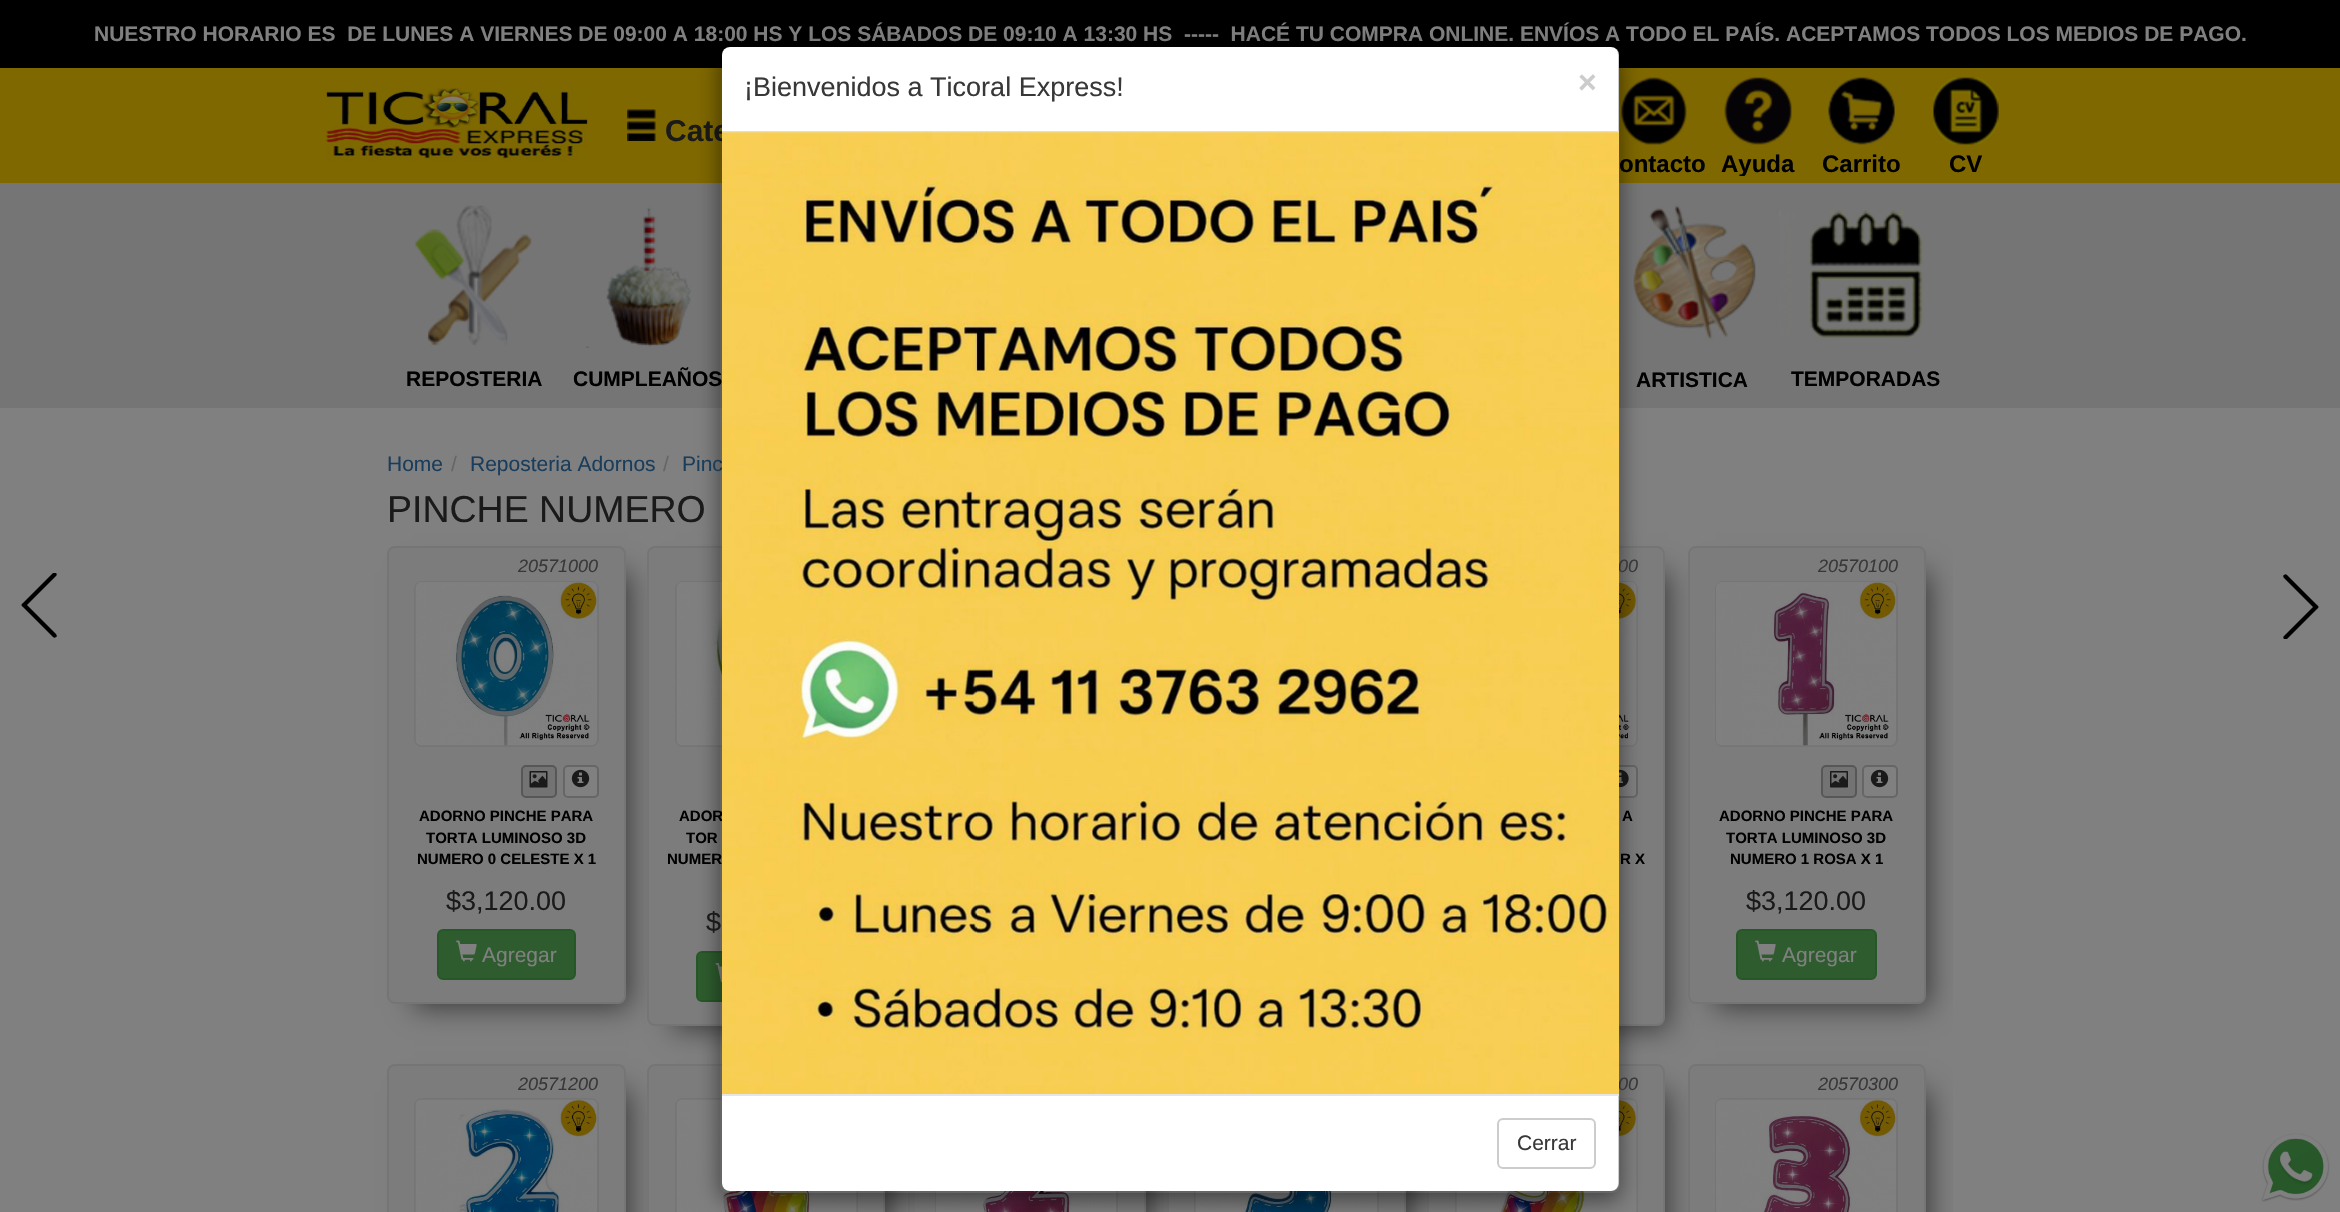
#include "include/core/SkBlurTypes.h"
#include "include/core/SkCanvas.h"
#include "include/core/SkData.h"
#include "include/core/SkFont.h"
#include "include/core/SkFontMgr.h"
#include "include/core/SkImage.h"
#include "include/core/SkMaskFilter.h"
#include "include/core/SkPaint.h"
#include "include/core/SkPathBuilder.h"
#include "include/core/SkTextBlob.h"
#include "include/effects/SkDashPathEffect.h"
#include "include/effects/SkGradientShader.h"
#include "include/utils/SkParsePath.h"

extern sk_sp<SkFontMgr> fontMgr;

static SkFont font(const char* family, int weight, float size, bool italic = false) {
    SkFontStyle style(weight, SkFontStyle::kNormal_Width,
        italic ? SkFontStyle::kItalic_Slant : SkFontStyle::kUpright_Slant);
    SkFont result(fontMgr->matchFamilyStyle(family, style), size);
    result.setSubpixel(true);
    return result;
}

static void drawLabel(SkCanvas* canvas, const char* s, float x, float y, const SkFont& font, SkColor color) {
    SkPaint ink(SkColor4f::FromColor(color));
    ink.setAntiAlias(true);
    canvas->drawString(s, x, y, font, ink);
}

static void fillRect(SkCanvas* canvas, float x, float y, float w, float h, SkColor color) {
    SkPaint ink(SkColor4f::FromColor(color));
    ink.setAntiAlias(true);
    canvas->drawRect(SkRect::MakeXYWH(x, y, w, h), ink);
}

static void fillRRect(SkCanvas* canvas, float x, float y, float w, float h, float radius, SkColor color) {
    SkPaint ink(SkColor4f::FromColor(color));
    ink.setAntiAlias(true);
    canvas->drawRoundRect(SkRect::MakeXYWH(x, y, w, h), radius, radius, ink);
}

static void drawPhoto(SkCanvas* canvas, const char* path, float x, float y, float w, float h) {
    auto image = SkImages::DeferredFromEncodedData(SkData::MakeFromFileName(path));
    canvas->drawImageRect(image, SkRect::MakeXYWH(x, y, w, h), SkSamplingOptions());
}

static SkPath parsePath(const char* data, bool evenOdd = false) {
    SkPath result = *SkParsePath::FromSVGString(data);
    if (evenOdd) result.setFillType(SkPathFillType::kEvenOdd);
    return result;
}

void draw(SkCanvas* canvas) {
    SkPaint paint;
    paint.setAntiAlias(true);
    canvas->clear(0xFF808080);
    fillRect(canvas, 0, 0, 2340, 68, 0xFF000000);
    SkFont font1 = font("Liberation Sans", 700, 21);
    drawLabel(canvas, "NUESTRO HORARIO ES  DE LUNES A VIERNES DE 09:00 A 18:00 HS Y LOS SÁBADOS DE 09:10 A 13:30 HS  -----  HACÉ TU COMPRA ONLINE. ENVÍOS A TODO EL PAÍS. ACEPTAMOS TODOS LOS MEDIOS DE PAGO.", 94, 41, font1, 0xFF808080);
    fillRect(canvas, 0, 68, 2340, 115, 0xFF7F6800);
    drawPhoto(canvas, "assets/img1.png", 325, 88, 263, 73);
    drawPhoto(canvas, "assets/img2.png", 627, 109, 29, 32);
    SkFont font2 = font("Liberation Sans", 700, 30);
    drawLabel(canvas, "Cate", 665, 141, font2, 0xFF1A1A1A);
    drawPhoto(canvas, "assets/img3.png", 1621, 77, 66, 68);
    SkFont font3 = font("Liberation Sans", 700, 24);
    drawLabel(canvas, "ontacto", 1619, 172, font3, 0xFF000000);
    drawPhoto(canvas, "assets/img4.png", 1724, 77, 68, 68);
    canvas->save();
    canvas->clipRect(SkRect::MakeXYWH(323, 68, 1695, 108));
    drawLabel(canvas, "Ayuda", 1721, 172, font3, 0xFF000000);
    canvas->restore();
    drawPhoto(canvas, "assets/img5.png", 1828, 77, 67, 68);
    drawLabel(canvas, "Carrito", 1822, 172, font3, 0xFF000000);
    drawPhoto(canvas, "assets/img6.png", 1933, 77, 66, 68);
    drawLabel(canvas, "CV", 1949, 172, font3, 0xFF000000);
    fillRect(canvas, 0, 183, 2340, 225, 0xFF757575);
    drawPhoto(canvas, "assets/img9.png", 586, 207, 105, 141);
    drawPhoto(canvas, "assets/img10.png", 1633, 205, 123, 134);
    paint.setColor(0x8F000000);
    paint.setMaskFilter(SkMaskFilter::MakeBlur(kNormal_SkBlurStyle, 13.5f));
    canvas->drawRect(SkRect::MakeXYWH(414, 573, 215, 434), paint);
    paint.setMaskFilter(nullptr);
    paint.setMaskFilter(SkMaskFilter::MakeBlur(kNormal_SkBlurStyle, 13.5f));
    canvas->drawRect(SkRect::MakeXYWH(674, 573, 214, 456), paint);
    paint.setMaskFilter(nullptr);
    paint.setColor(0xFF7C7C7C);
    canvas->drawRoundRect(SkRect::MakeXYWH(648, 547, 236, 478), 7, 7, paint);
    paint.setStroke(true);
    paint.setStrokeWidth(2);
    paint.setColor(0xFF757575);
    canvas->drawRoundRect(SkRect::MakeXYWH(648, 547, 236, 478), 7, 7, paint);
    canvas->drawRoundRect(SkRect::MakeXYWH(676, 582, 181, 164), 7, 7, paint);
    drawPhoto(canvas, "assets/img16.png", 676, 582, 46, 164);
    paint.setStroke(false);
    paint.setColor(0xFF2E5C2E);
    canvas->drawRoundRect(SkRect::MakeXYWH(697, 952, 139, 49), 5, 5, paint);
    paint.setStroke(true);
    paint.setColor(0xFF265726);
    canvas->drawRoundRect(SkRect::MakeXYWH(697, 952, 139, 49), 5, 5, paint);
    drawPhoto(canvas, "assets/img17.png", 715, 963, 7, 20);
    paint.setStroke(false);
    paint.setColor(0x8F000000);
    paint.setMaskFilter(SkMaskFilter::MakeBlur(kNormal_SkBlurStyle, 13.5f));
    canvas->drawRect(SkRect::MakeXYWH(1454, 573, 214, 456), paint);
    paint.setMaskFilter(nullptr);
    paint.setColor(0xFF7C7C7C);
    canvas->drawRoundRect(SkRect::MakeXYWH(1428, 547, 236, 478), 7, 7, paint);
    paint.setStroke(true);
    paint.setColor(0xFF757575);
    canvas->drawRoundRect(SkRect::MakeXYWH(1428, 547, 236, 478), 7, 7, paint);
    canvas->drawRoundRect(SkRect::MakeXYWH(1456, 582, 181, 164), 7, 7, paint);
    drawPhoto(canvas, "assets/img18.png", 1619, 582, 18, 164);
    paint.setStroke(false);
    paint.setColor(0xFF808080);
    canvas->drawRoundRect(SkRect::MakeXYWH(1603, 766, 34, 31), 4, 4, paint);
    paint.setStroke(true);
    paint.setColor(0xFF666666);
    canvas->drawRoundRect(SkRect::MakeXYWH(1603, 766, 34, 31), 4, 4, paint);
    drawPhoto(canvas, "assets/img19.png", 1619, 769, 10, 19);
    paint.setStroke(false);
    paint.setColor(0x8F000000);
    paint.setMaskFilter(SkMaskFilter::MakeBlur(kNormal_SkBlurStyle, 13.5f));
    canvas->drawRect(SkRect::MakeXYWH(414, 1091, 215, 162), paint);
    paint.setMaskFilter(nullptr);
    paint.setMaskFilter(SkMaskFilter::MakeBlur(kNormal_SkBlurStyle, 13.5f));
    canvas->drawRect(SkRect::MakeXYWH(674, 1091, 214, 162), paint);
    paint.setMaskFilter(nullptr);
    paint.setColor(0xFF7C7C7C);
    canvas->drawRoundRect(SkRect::MakeXYWH(648, 1065, 236, 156), 7, 7, paint);
    paint.setStroke(true);
    paint.setColor(0xFF757575);
    canvas->drawRoundRect(SkRect::MakeXYWH(648, 1065, 236, 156), 7, 7, paint);
    canvas->drawRoundRect(SkRect::MakeXYWH(676, 1099, 181, 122), 7, 7, paint);
    drawPhoto(canvas, "assets/img23.png", 676, 1099, 181, 113);
    paint.setStroke(false);
    paint.setColor(0x8F000000);
    paint.setMaskFilter(SkMaskFilter::MakeBlur(kNormal_SkBlurStyle, 13.5f));
    canvas->drawRect(SkRect::MakeXYWH(935, 1091, 214, 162), paint);
    paint.setMaskFilter(nullptr);
    fillRect(canvas, 915, 1191, 229, 21, 0xFF7C7C7C);
    paint.setStroke(true);
    paint.setColor(0xFF757575);
    canvas->drawRect(SkRect::MakeXYWH(909, 1065, 236, 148), paint);
    canvas->drawRect(SkRect::MakeXYWH(936, 1099, 181, 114), paint);
    drawPhoto(canvas, "assets/img24.png", 936, 1191, 180, 21);
    paint.setStroke(false);
    paint.setColor(0x8F000000);
    paint.setMaskFilter(SkMaskFilter::MakeBlur(kNormal_SkBlurStyle, 13.5f));
    canvas->drawRect(SkRect::MakeXYWH(1194, 1091, 215, 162), paint);
    paint.setMaskFilter(nullptr);
    fillRect(canvas, 1169, 1191, 235, 21, 0xFF7C7C7C);
    paint.setStroke(true);
    paint.setColor(0xFF757575);
    canvas->drawRect(SkRect::MakeXYWH(1168, 1065, 237, 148), paint);
    canvas->drawRect(SkRect::MakeXYWH(1195, 1099, 183, 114), paint);
    drawPhoto(canvas, "assets/img25.png", 1195, 1191, 182, 21);
    paint.setStroke(false);
    paint.setColor(0x8F000000);
    paint.setMaskFilter(SkMaskFilter::MakeBlur(kNormal_SkBlurStyle, 13.5f));
    canvas->drawRect(SkRect::MakeXYWH(1454, 1091, 214, 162), paint);
    paint.setMaskFilter(nullptr);
    paint.setColor(0xFF7C7C7C);
    canvas->drawRoundRect(SkRect::MakeXYWH(1428, 1065, 236, 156), 7, 7, paint);
    paint.setStroke(true);
    paint.setColor(0xFF757575);
    canvas->drawRoundRect(SkRect::MakeXYWH(1428, 1065, 236, 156), 7, 7, paint);
    canvas->drawRoundRect(SkRect::MakeXYWH(1456, 1099, 181, 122), 7, 7, paint);
    drawPhoto(canvas, "assets/img26.png", 1456, 1099, 181, 113);
    canvas->save();
    canvas->clipPath(parsePath("M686 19H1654V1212H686ZM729 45H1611C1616 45 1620 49 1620 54V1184C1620 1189 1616 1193 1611 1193H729C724 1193 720 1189 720 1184V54C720 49 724 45 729 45Z", true), true);
    paint.setStroke(false);
    paint.setColor(0x80000000);
    paint.setMaskFilter(SkMaskFilter::MakeBlur(kNormal_SkBlurStyle, 11));
    canvas->drawRoundRect(SkRect::MakeXYWH(720, 53, 900, 1147), 9, 9, paint);
    paint.setMaskFilter(nullptr);
    canvas->restore();
    SkFont font4 = font("Liberation Sans", 400, 21);
    drawLabel(canvas, "Pinc", 682, 471, font4, 0xFF1A3D5C);
    SkFont font5 = font("Liberation Sans", 700, 15);
    drawLabel(canvas, "ADOR", 679, 821, font5, 0xFF000000);
    drawLabel(canvas, "NUMER", 667, 864, font5, 0xFF000000);
    SkFont font6 = font("Liberation Sans", 400, 18, true);
    drawLabel(canvas, "00", 1618, 572, font6, 0xFF383838);
    drawLabel(canvas, "00", 1618, 1090, font6, 0xFF383838);
    fillRRect(canvas, 722, 47, 897, 1144, 8, 0xFFFFFFFF);
    drawLabel(canvas, "CUMPLEAÑOS", 573, 386, font1, 0xFF000000);
    SkFont font7 = font("Liberation Sans", 400, 27);
    drawLabel(canvas, "$", 706, 931, font7, 0xFF1A1A1A);
    paint.setStroke(true);
    paint.setColor(0x33000000);
    canvas->drawRoundRect(SkRect::MakeXYWH(721, 46, 898, 1146), 8, 8, paint);
    fillRect(canvas, 722, 131, 897, 2, 0xFFE5E5E5);
    drawLabel(canvas, "¡Bienvenidos a Ticoral Express!", 744, 96, font7, 0xFF383838);
    SkFont font8 = font("Liberation Sans", 700, 32);
    drawLabel(canvas, "×", 1578, 93, font8, 0xFFCCCCCC);
    drawPhoto(canvas, "assets/img7.png", 722, 131, 897, 963);
    fillRect(canvas, 722, 1094, 897, 2, 0xFFE5E5E5);
    paint.setColor(0xFFCCCCCC);
    canvas->drawRoundRect(SkRect::MakeXYWH(1498, 1119, 97, 49), 5, 5, paint);
    drawLabel(canvas, "Cerrar", 1517, 1150, font4, 0xFF383838);
    drawPhoto(canvas, "assets/img8.png", 415, 205, 117, 141);
    drawLabel(canvas, "REPOSTERIA", 406, 386, font1, 0xFF000000);
    drawLabel(canvas, "ARTISTICA", 1636, 387, font1, 0xFF000000);
    drawPhoto(canvas, "assets/img11.png", 1779, 210, 144, 128);
    drawLabel(canvas, "TEMPORADAS", 1791, 386, font1, 0xFF000000);
    canvas->save();
    canvas->clipRect(SkRect::MakeXYWH(6, 573, 66, 66));
    paint.setStroke(false);
    paint.setColor(0xFF000000);
    canvas->drawPath(parsePath("M56 573C57 574 57 575 56 576L27 605L56 634C57 635 57 637 56 637C55 638 54 638 53 637L23 607C21 606 21 604 23 603L53 573C54 572 55 572 56 573Z"), paint);
    canvas->restore();
    canvas->save();
    canvas->clipRect(SkRect::MakeXYWH(2268, 573, 66, 66));
    canvas->drawPath(parsePath("M2284 639C2283 638 2283 637 2284 636L2313 607L2284 578C2283 577 2283 575 2284 575C2285 574 2286 574 2287 575L2317 605C2319 606 2319 608 2317 609L2287 639C2286 640 2285 640 2284 639Z"), paint);
    canvas->restore();
    drawLabel(canvas, "Home", 387, 471, font4, 0xFF1A3D5C);
    drawLabel(canvas, "/", 451, 471, font4, 0xFF666666);
    drawLabel(canvas, "Reposteria Adornos", 470, 471, font4, 0xFF1A3D5C);
    drawLabel(canvas, "/", 663, 471, font4, 0xFF666666);
    SkFont font9 = font("Liberation Sans", 400, 37.5f);
    drawLabel(canvas, "PINCHE NUMERO", 387, 522, font9, 0xFF1A1A1A);
    paint.setColor(0xFF7C7C7C);
    canvas->drawRoundRect(SkRect::MakeXYWH(388, 547, 237, 456), 7, 7, paint);
    paint.setStroke(true);
    paint.setColor(0xFF757575);
    canvas->drawRoundRect(SkRect::MakeXYWH(388, 547, 237, 456), 7, 7, paint);
    drawLabel(canvas, "20571000", 518, 572, font6, 0xFF383838);
    canvas->drawRoundRect(SkRect::MakeXYWH(415, 582, 183, 164), 7, 7, paint);
    drawPhoto(canvas, "assets/img12.png", 415, 582, 182, 164);
    paint.setStroke(false);
    paint.setColor(0xFF737373);
    canvas->drawRoundRect(SkRect::MakeXYWH(522, 766, 34, 31), 4, 4, paint);
    paint.setStroke(true);
    paint.setColor(0xFF575757);
    canvas->drawRoundRect(SkRect::MakeXYWH(522, 766, 34, 31), 4, 4, paint);
    drawPhoto(canvas, "assets/img13.png", 529, 771, 19, 17);
    paint.setStroke(false);
    paint.setColor(0xFF808080);
    canvas->drawRoundRect(SkRect::MakeXYWH(564, 766, 34, 31), 4, 4, paint);
    paint.setStroke(true);
    paint.setColor(0xFF666666);
    canvas->drawRoundRect(SkRect::MakeXYWH(564, 766, 34, 31), 4, 4, paint);
    drawPhoto(canvas, "assets/img14.png", 571, 769, 19, 19);
    drawLabel(canvas, "ADORNO PINCHE PARA", 419, 821, font5, 0xFF000000);
    drawLabel(canvas, "TORTA LUMINOSO 3D", 426, 843, font5, 0xFF000000);
    drawLabel(canvas, "NUMERO 0 CELESTE X 1", 417, 864, font5, 0xFF000000);
    drawLabel(canvas, "$3,120.00", 446, 910, font7, 0xFF1A1A1A);
    paint.setStroke(false);
    paint.setColor(0xFF2E5C2E);
    canvas->drawRoundRect(SkRect::MakeXYWH(438, 930, 137, 49), 5, 5, paint);
    paint.setStroke(true);
    paint.setColor(0xFF265726);
    canvas->drawRoundRect(SkRect::MakeXYWH(438, 930, 137, 49), 5, 5, paint);
    drawPhoto(canvas, "assets/img15.png", 456, 940, 21, 22);
    drawLabel(canvas, "Agregar", 482, 962, font4, 0xFF808080);
    drawLabel(canvas, "TOR", 686, 843, font5, 0xFF000000);
    drawLabel(canvas, "A", 1622, 821, font5, 0xFF000000);
    drawLabel(canvas, "R X", 1620, 864, font5, 0xFF000000);
    canvas->save();
    canvas->clipRect(SkRect::MakeXYWH(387, 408, 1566, 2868));
    paint.setStroke(false);
    paint.setColor(0x8F000000);
    paint.setMaskFilter(SkMaskFilter::MakeBlur(kNormal_SkBlurStyle, 13.5f));
    canvas->drawRect(SkRect::MakeXYWH(1715, 573, 214, 434), paint);
    paint.setMaskFilter(nullptr);
    canvas->restore();
    paint.setColor(0xFF7C7C7C);
    canvas->drawRoundRect(SkRect::MakeXYWH(1689, 547, 236, 456), 7, 7, paint);
    paint.setStroke(true);
    paint.setColor(0xFF757575);
    canvas->drawRoundRect(SkRect::MakeXYWH(1689, 547, 236, 456), 7, 7, paint);
    drawLabel(canvas, "20570100", 1818, 572, font6, 0xFF383838);
    canvas->drawRoundRect(SkRect::MakeXYWH(1716, 582, 181, 164), 7, 7, paint);
    drawPhoto(canvas, "assets/img20.png", 1716, 582, 180, 164);
    paint.setStroke(false);
    paint.setColor(0xFF737373);
    canvas->drawRoundRect(SkRect::MakeXYWH(1822, 766, 34, 31), 4, 4, paint);
    paint.setStroke(true);
    paint.setColor(0xFF575757);
    canvas->drawRoundRect(SkRect::MakeXYWH(1822, 766, 34, 31), 4, 4, paint);
    drawPhoto(canvas, "assets/img21.png", 1830, 771, 18, 17);
    paint.setStroke(false);
    paint.setColor(0xFF808080);
    canvas->drawRoundRect(SkRect::MakeXYWH(1863, 766, 34, 31), 4, 4, paint);
    paint.setStroke(true);
    paint.setColor(0xFF666666);
    canvas->drawRoundRect(SkRect::MakeXYWH(1863, 766, 34, 31), 4, 4, paint);
    drawPhoto(canvas, "assets/img14.png", 1870, 769, 19, 19);
    drawLabel(canvas, "ADORNO PINCHE PARA", 1719, 821, font5, 0xFF000000);
    drawLabel(canvas, "TORTA LUMINOSO 3D", 1726, 843, font5, 0xFF000000);
    drawLabel(canvas, "NUMERO 1 ROSA X 1", 1730, 864, font5, 0xFF000000);
    drawLabel(canvas, "$3,120.00", 1746, 910, font7, 0xFF1A1A1A);
    paint.setStroke(false);
    paint.setColor(0xFF2E5C2E);
    canvas->drawRoundRect(SkRect::MakeXYWH(1737, 930, 139, 49), 5, 5, paint);
    paint.setStroke(true);
    paint.setColor(0xFF265726);
    canvas->drawRoundRect(SkRect::MakeXYWH(1737, 930, 139, 49), 5, 5, paint);
    drawPhoto(canvas, "assets/img15.png", 1755, 940, 21, 22);
    drawLabel(canvas, "Agregar", 1782, 962, font4, 0xFF808080);
    paint.setStroke(false);
    paint.setColor(0xFF7C7C7C);
    canvas->drawRoundRect(SkRect::MakeXYWH(388, 1065, 237, 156), 7, 7, paint);
    paint.setStroke(true);
    paint.setColor(0xFF757575);
    canvas->drawRoundRect(SkRect::MakeXYWH(388, 1065, 237, 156), 7, 7, paint);
    drawLabel(canvas, "20571200", 518, 1090, font6, 0xFF383838);
    canvas->drawRoundRect(SkRect::MakeXYWH(415, 1099, 183, 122), 7, 7, paint);
    drawPhoto(canvas, "assets/img22.png", 415, 1099, 182, 113);
    canvas->save();
    canvas->clipRect(SkRect::MakeXYWH(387, 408, 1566, 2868));
    paint.setStroke(false);
    paint.setColor(0x8F000000);
    paint.setMaskFilter(SkMaskFilter::MakeBlur(kNormal_SkBlurStyle, 13.5f));
    canvas->drawRect(SkRect::MakeXYWH(1715, 1091, 214, 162), paint);
    paint.setMaskFilter(nullptr);
    canvas->restore();
    paint.setColor(0xFF7C7C7C);
    canvas->drawRoundRect(SkRect::MakeXYWH(1689, 1065, 236, 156), 7, 7, paint);
    paint.setStroke(true);
    paint.setColor(0xFF757575);
    canvas->drawRoundRect(SkRect::MakeXYWH(1689, 1065, 236, 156), 7, 7, paint);
    drawLabel(canvas, "20570300", 1818, 1090, font6, 0xFF383838);
    canvas->drawRoundRect(SkRect::MakeXYWH(1716, 1099, 181, 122), 7, 7, paint);
    drawPhoto(canvas, "assets/img27.png", 1716, 1099, 180, 113);
    drawPhoto(canvas, "assets/img28.png", 2261, 1133, 69, 69);
}
